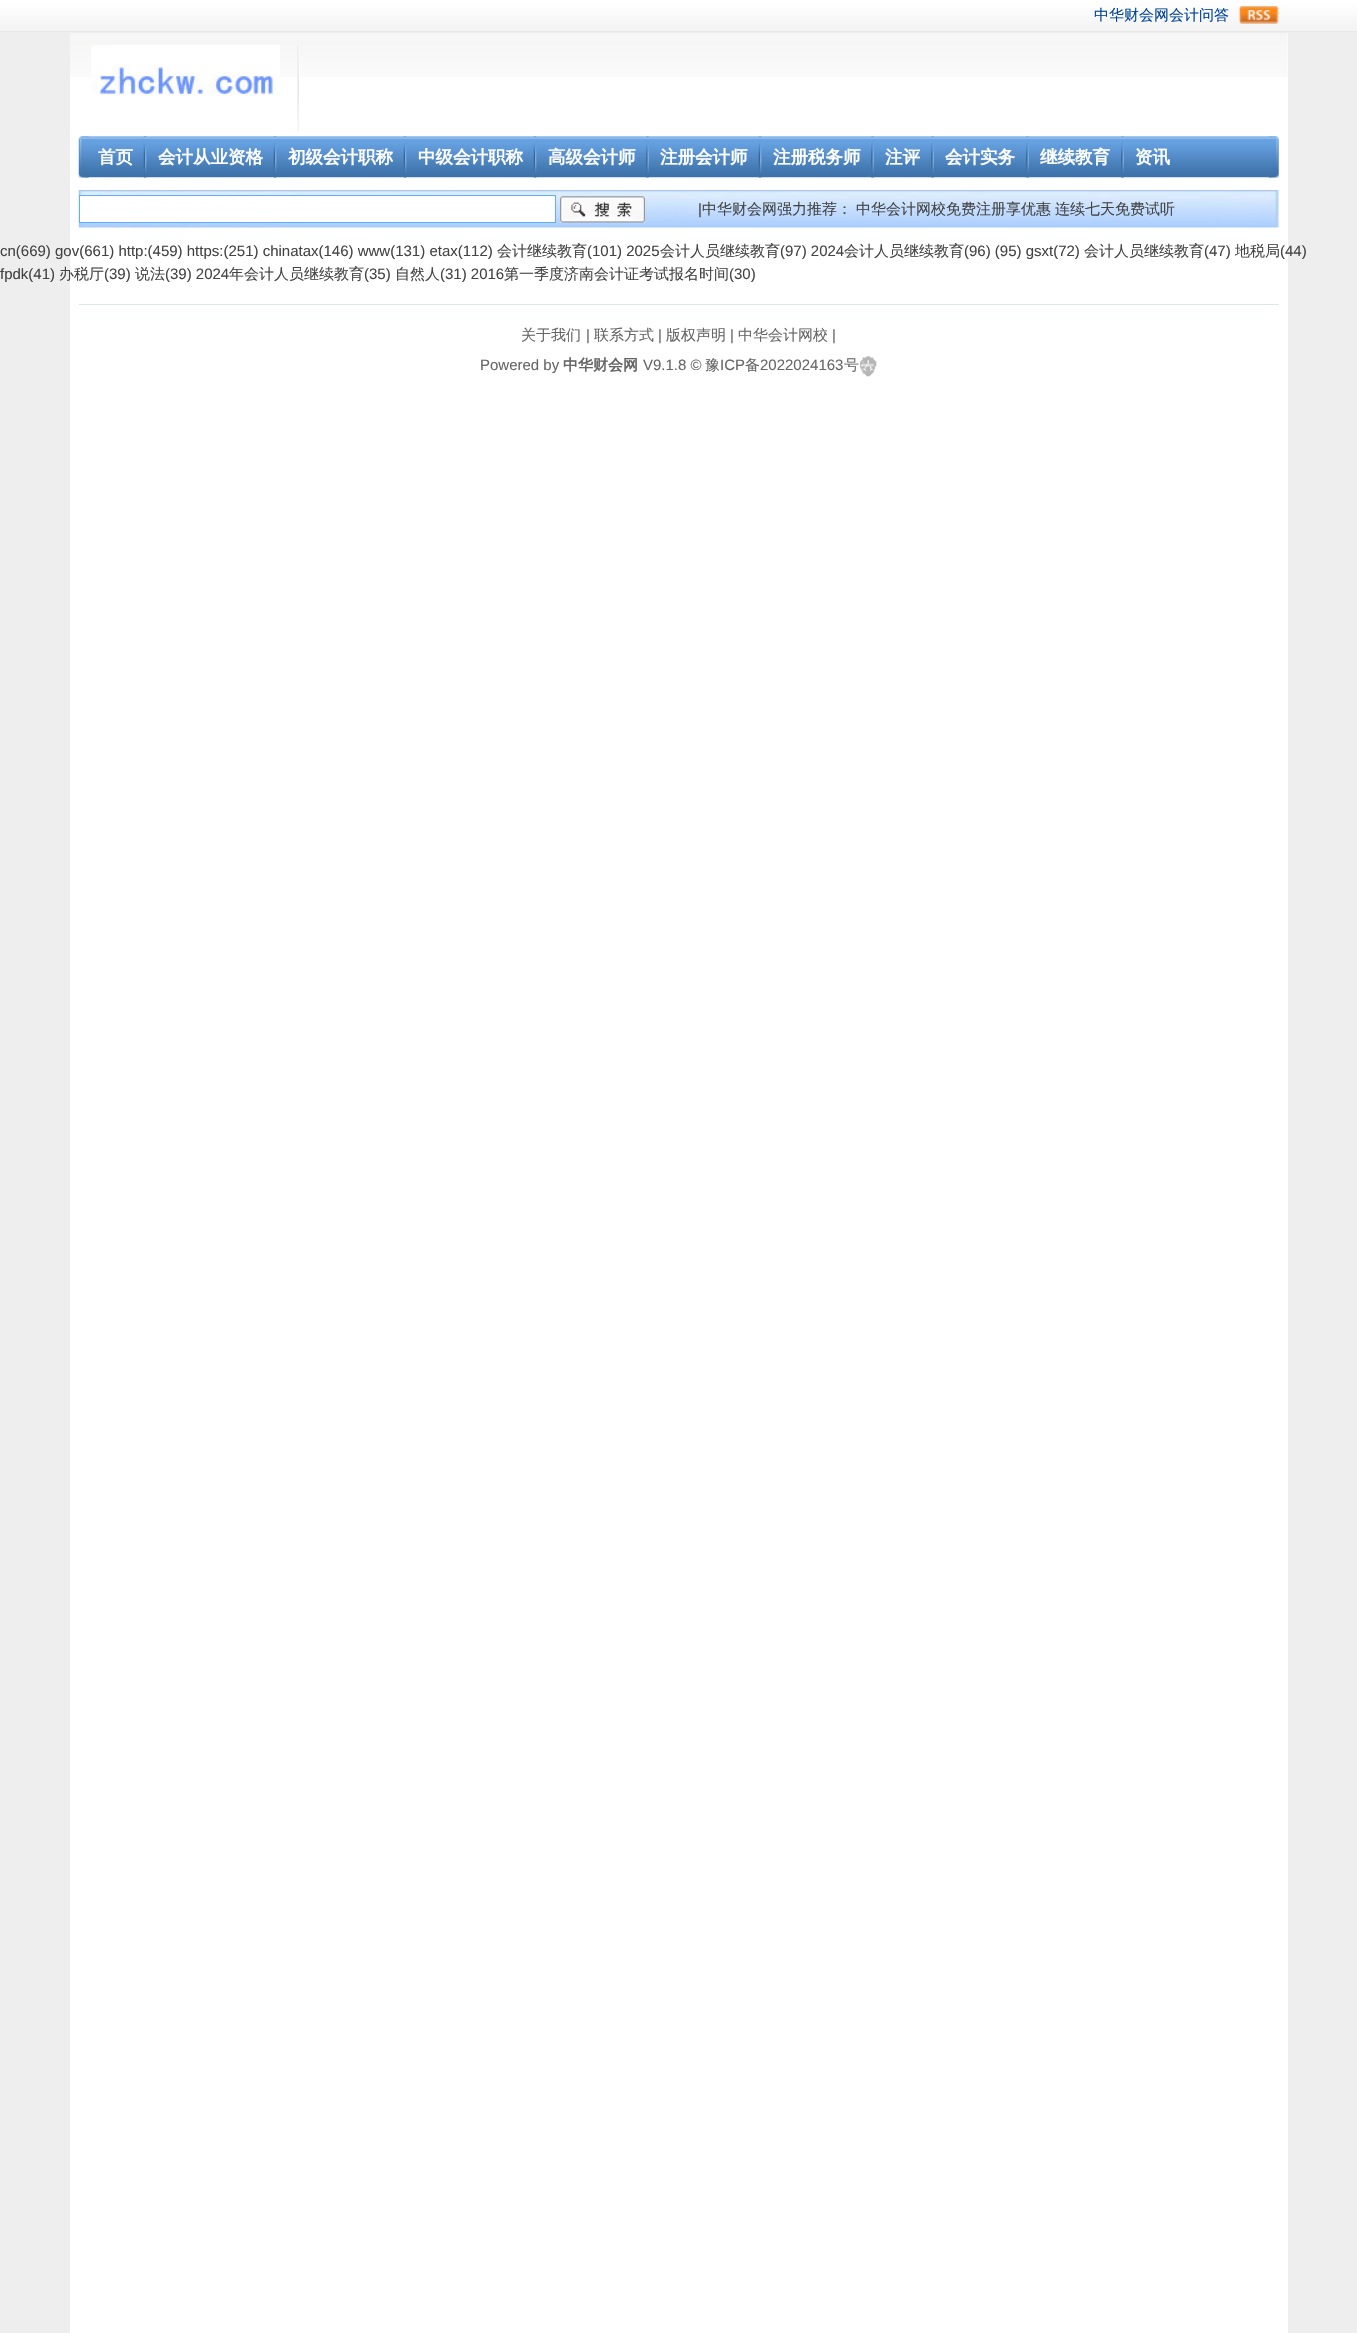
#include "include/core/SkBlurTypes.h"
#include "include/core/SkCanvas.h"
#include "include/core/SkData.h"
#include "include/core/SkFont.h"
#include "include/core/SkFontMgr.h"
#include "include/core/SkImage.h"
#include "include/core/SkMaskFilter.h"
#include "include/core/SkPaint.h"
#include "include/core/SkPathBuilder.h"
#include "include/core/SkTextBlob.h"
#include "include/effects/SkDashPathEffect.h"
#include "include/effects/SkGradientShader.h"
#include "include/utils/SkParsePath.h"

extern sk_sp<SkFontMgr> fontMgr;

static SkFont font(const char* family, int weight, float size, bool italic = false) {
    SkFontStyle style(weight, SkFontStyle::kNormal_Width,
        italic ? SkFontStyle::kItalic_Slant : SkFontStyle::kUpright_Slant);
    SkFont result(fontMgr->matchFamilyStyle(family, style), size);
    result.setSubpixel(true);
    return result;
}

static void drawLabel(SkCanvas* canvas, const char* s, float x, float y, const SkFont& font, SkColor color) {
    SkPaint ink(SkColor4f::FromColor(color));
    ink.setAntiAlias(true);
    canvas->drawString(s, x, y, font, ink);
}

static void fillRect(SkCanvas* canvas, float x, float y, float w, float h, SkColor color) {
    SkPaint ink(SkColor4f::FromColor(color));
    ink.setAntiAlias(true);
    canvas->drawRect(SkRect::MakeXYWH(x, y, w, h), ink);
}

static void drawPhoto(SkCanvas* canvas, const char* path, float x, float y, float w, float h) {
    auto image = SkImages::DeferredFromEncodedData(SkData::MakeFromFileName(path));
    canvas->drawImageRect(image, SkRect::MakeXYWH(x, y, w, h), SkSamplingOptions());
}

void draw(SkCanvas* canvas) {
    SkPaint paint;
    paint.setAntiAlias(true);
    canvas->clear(0xFFEEEEEE);
    fillRect(canvas, 70, 33, 1218, 2300, 0xFFFFFFFF);
    drawPhoto(canvas, "assets/img1.png", 0, 0, 1357, 32);
    SkFont font1 = font("WenQuanYi Zen Hei", 500, 15);
    drawLabel(canvas, "中华财会网", 1094, 20, font1, 0xFF004499);
    drawLabel(canvas, "会计问答", 1169, 20, font1, 0xFF004499);
    drawPhoto(canvas, "assets/img2.png", 1238, 6, 41, 18);
    drawPhoto(canvas, "assets/img3.png", 70, 33, 1218, 44);
    drawPhoto(canvas, "assets/img4.png", 297, 45, 3, 88);
    drawPhoto(canvas, "assets/img5.png", 91, 45, 189, 50);
    drawPhoto(canvas, "assets/img6.png", 78, 136, 11, 42);
    drawPhoto(canvas, "assets/img7.png", 1268, 136, 11, 42);
    drawPhoto(canvas, "assets/img8.png", 85, 136, 1188, 42);
    SkFont font2 = font("WenQuanYi Zen Hei", 700, 17.5f);
    drawLabel(canvas, "首页", 98, 163, font2, 0xFFFFFFFF);
    drawPhoto(canvas, "assets/img9.png", 143, 136, 4, 42);
    drawLabel(canvas, "会计从业资格", 158, 163, font2, 0xFFFFFFFF);
    drawPhoto(canvas, "assets/img10.png", 273, 136, 4, 42);
    drawLabel(canvas, "初级会计职称", 288, 163, font2, 0xFFFFFFFF);
    drawPhoto(canvas, "assets/img11.png", 403, 136, 4, 42);
    drawLabel(canvas, "中级会计职称", 418, 163, font2, 0xFFFFFFFF);
    drawPhoto(canvas, "assets/img12.png", 533, 136, 4, 42);
    drawLabel(canvas, "高级会计师", 548, 163, font2, 0xFFFFFFFF);
    drawPhoto(canvas, "assets/img13.png", 646, 136, 3, 42);
    drawLabel(canvas, "注册会计师", 660, 163, font2, 0xFFFFFFFF);
    drawPhoto(canvas, "assets/img14.png", 758, 136, 4, 42);
    drawLabel(canvas, "注册税务师", 773, 163, font2, 0xFFFFFFFF);
    drawPhoto(canvas, "assets/img15.png", 871, 136, 3, 42);
    drawLabel(canvas, "注评", 885, 163, font2, 0xFFFFFFFF);
    drawPhoto(canvas, "assets/img15.png", 931, 136, 3, 42);
    drawLabel(canvas, "会计实务", 945, 163, font2, 0xFFFFFFFF);
    drawPhoto(canvas, "assets/img16.png", 1026, 136, 3, 42);
    drawLabel(canvas, "继续教育", 1040, 163, font2, 0xFFFFFFFF);
    drawPhoto(canvas, "assets/img16.png", 1121, 136, 3, 42);
    drawLabel(canvas, "资讯", 1135, 163, font2, 0xFFFFFFFF);
    drawPhoto(canvas, "assets/img17.png", 78, 190, 1201, 38);
    paint.setColor(0xFFFFFFFF);
    canvas->drawRect(SkRect::MakeXYWH(79.5f, 195.5f, 476, 27), paint);
    paint.setStroke(true);
    paint.setStrokeWidth(1);
    paint.setColor(0xFF5EAEFF);
    canvas->drawRect(SkRect::MakeXYWH(79.5f, 195.5f, 476, 27), paint);
    drawPhoto(canvas, "assets/img18.png", 560, 196, 85, 27);
    SkFont font3 = font("Liberation Sans", 400, 15);
    drawLabel(canvas, "|", 698, 214, font3, 0xFF444444);
    drawLabel(canvas, "中华财会网强力推荐：", 702, 214, font1, 0xFF444444);
    drawLabel(canvas, "中华会计网校免费注册享优惠", 856, 214, font1, 0xFF444444);
    drawLabel(canvas, "连续七天免费试听", 1055, 214, font1, 0xFF444444);
    drawLabel(canvas, "cn(669) gov(661) http:(459) https:(251) chinatax(146) www(131) etax(112)", 0, 256, font3, 0xFF444444);
    drawLabel(canvas, "会计继续教育", 497, 256, font1, 0xFF444444);
    drawLabel(canvas, "(101) 2025", 587, 256, font3, 0xFF444444);
    drawLabel(canvas, "会计人员继续教育", 660, 256, font1, 0xFF444444);
    drawLabel(canvas, "(97) 2024", 780, 256, font3, 0xFF444444);
    drawLabel(canvas, "会计人员继续教育", 844, 256, font1, 0xFF444444);
    drawLabel(canvas, "(96) (95) gsxt(72)", 964, 256, font3, 0xFF444444);
    drawLabel(canvas, "会计人员继续教育", 1084, 256, font1, 0xFF444444);
    drawLabel(canvas, "(47)", 1204, 256, font3, 0xFF444444);
    drawLabel(canvas, "地税局", 1235, 256, font1, 0xFF444444);
    drawLabel(canvas, "(44)", 1280, 256, font3, 0xFF444444);
    drawLabel(canvas, "fpdk(41)", 0, 279, font3, 0xFF444444);
    drawLabel(canvas, "办税厅", 59, 279, font1, 0xFF444444);
    drawLabel(canvas, "(39)", 104, 279, font3, 0xFF444444);
    drawLabel(canvas, "说法", 135, 279, font1, 0xFF444444);
    drawLabel(canvas, "(39) 2024", 165, 279, font3, 0xFF444444);
    drawLabel(canvas, "年会计人员继续教育", 229, 279, font1, 0xFF444444);
    drawLabel(canvas, "(35)", 364, 279, font3, 0xFF444444);
    drawLabel(canvas, "自然人", 395, 279, font1, 0xFF444444);
    drawLabel(canvas, "(31) 2016", 440, 279, font3, 0xFF444444);
    drawLabel(canvas, "第一季度济南会计证考试报名时间", 504, 279, font1, 0xFF444444);
    drawLabel(canvas, "(30)", 729, 279, font3, 0xFF444444);
    fillRect(canvas, 79, 304, 1200, 1, 0xFFDBE7ED);
    drawLabel(canvas, "关于我们", 521, 340, font1, 0xFF666666);
    drawLabel(canvas, "|", 586, 340, font3, 0xFF666666);
    drawLabel(canvas, "联系方式", 594, 340, font1, 0xFF666666);
    drawLabel(canvas, "|", 658, 340, font3, 0xFF666666);
    drawLabel(canvas, "版权声明", 666, 340, font1, 0xFF666666);
    drawLabel(canvas, "|", 730, 340, font3, 0xFF666666);
    drawLabel(canvas, "中华会计网校", 738, 340, font1, 0xFF666666);
    drawLabel(canvas, "|", 832, 340, font3, 0xFF666666);
    drawLabel(canvas, "Powered by", 480, 370, font3, 0xFF666666);
    SkFont font4 = font("WenQuanYi Zen Hei", 700, 15);
    drawLabel(canvas, "中华财会网", 563, 370, font4, 0xFF666666);
    drawLabel(canvas, "V9.1.8 ©", 643, 370, font3, 0xFF666666);
    drawLabel(canvas, "豫", 705, 370, font1, 0xFF666666);
    drawLabel(canvas, "ICP", 720, 370, font3, 0xFF666666);
    drawLabel(canvas, "备", 745, 370, font1, 0xFF666666);
    drawLabel(canvas, "2022024163", 760, 370, font3, 0xFF666666);
    drawLabel(canvas, "号", 844, 370, font1, 0xFF666666);
    drawPhoto(canvas, "assets/img19.png", 859, 356, 18, 21);
}
